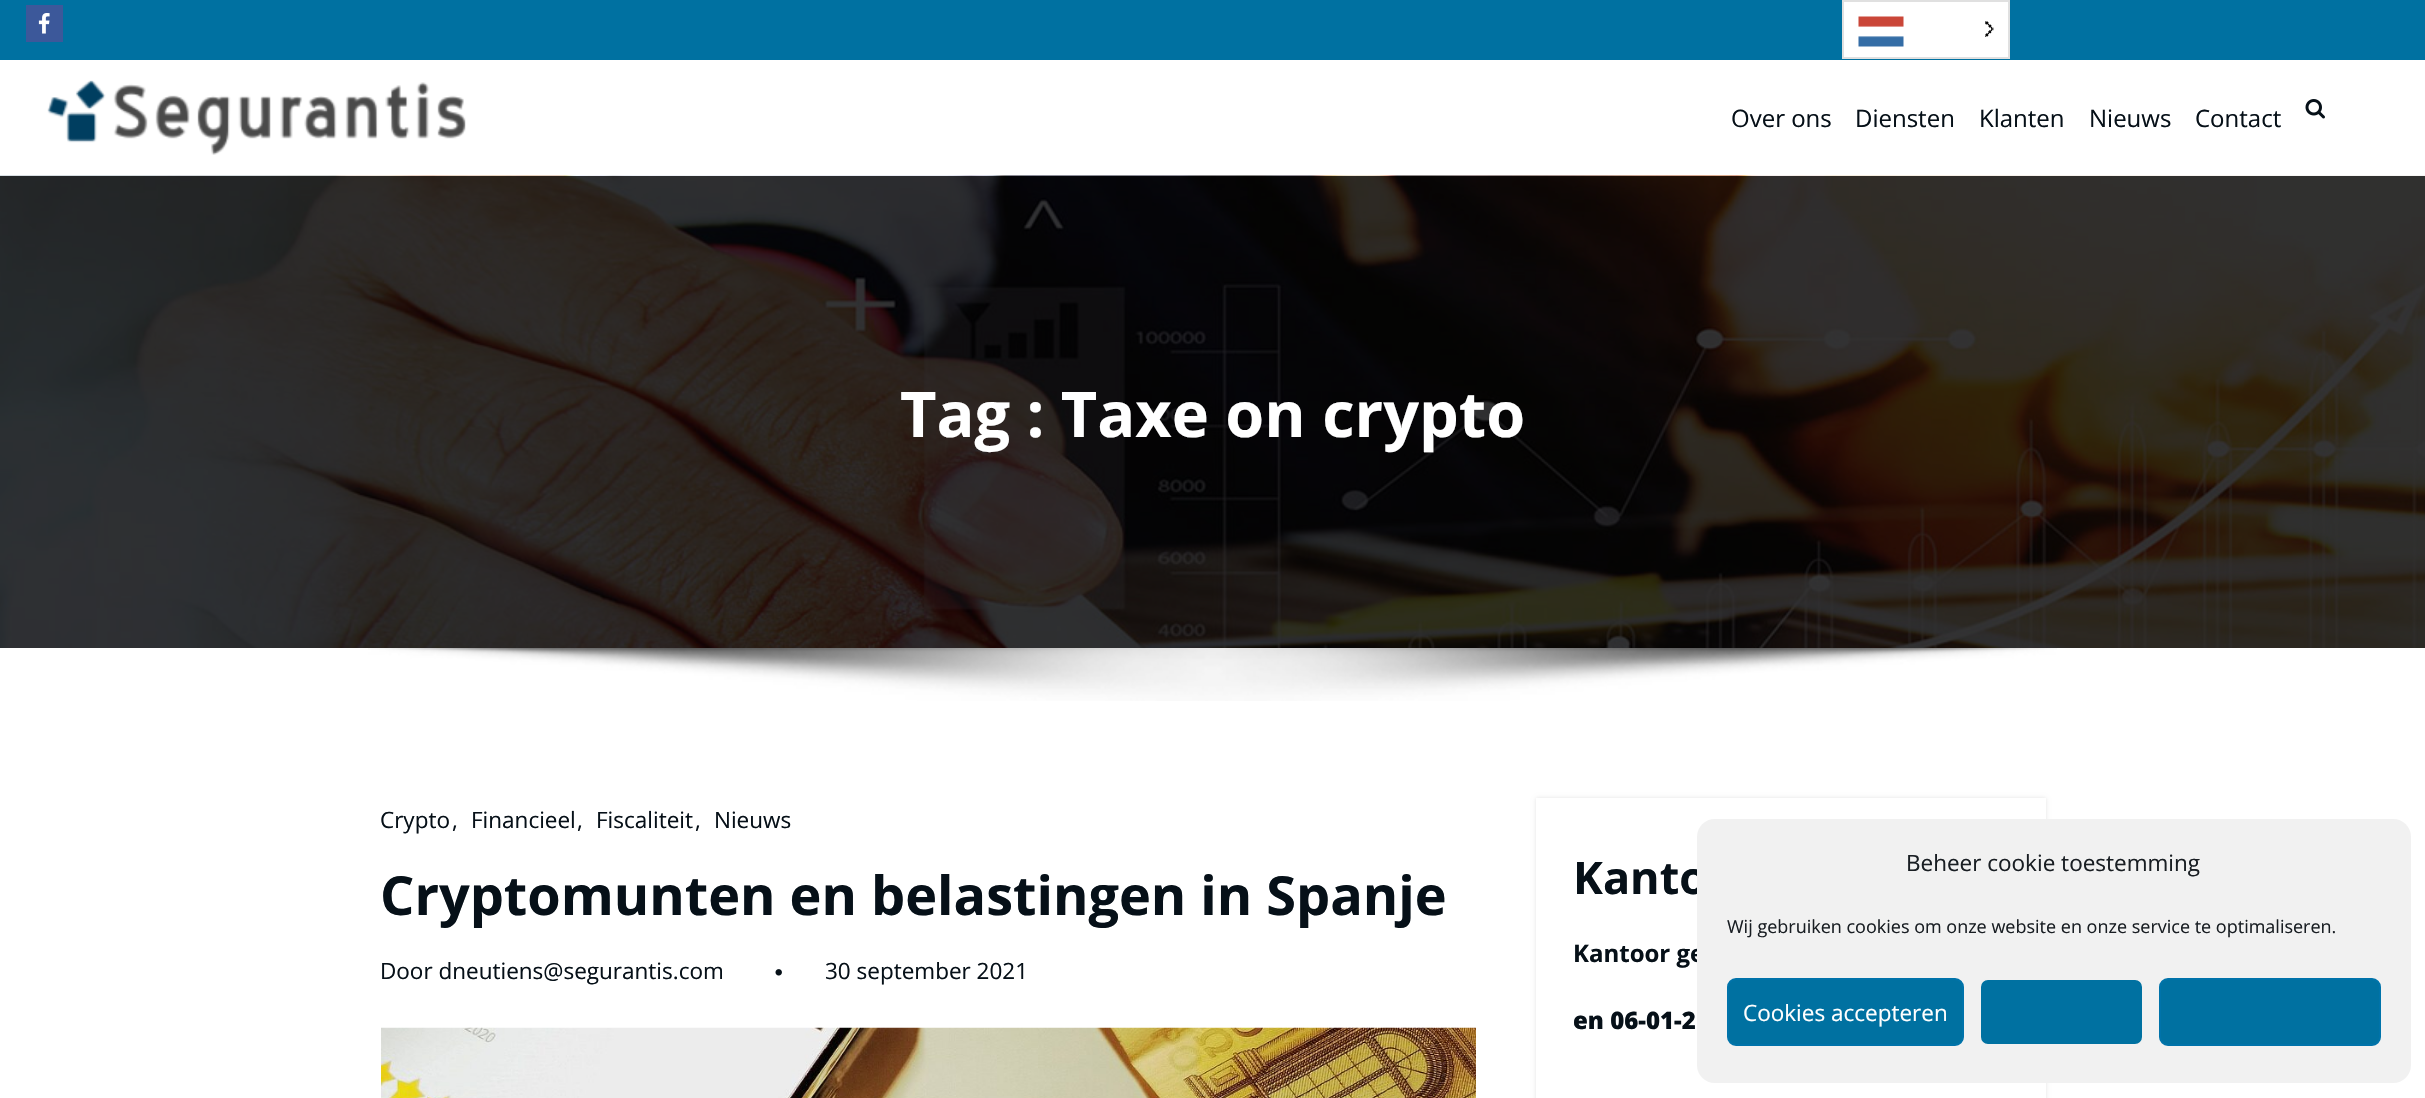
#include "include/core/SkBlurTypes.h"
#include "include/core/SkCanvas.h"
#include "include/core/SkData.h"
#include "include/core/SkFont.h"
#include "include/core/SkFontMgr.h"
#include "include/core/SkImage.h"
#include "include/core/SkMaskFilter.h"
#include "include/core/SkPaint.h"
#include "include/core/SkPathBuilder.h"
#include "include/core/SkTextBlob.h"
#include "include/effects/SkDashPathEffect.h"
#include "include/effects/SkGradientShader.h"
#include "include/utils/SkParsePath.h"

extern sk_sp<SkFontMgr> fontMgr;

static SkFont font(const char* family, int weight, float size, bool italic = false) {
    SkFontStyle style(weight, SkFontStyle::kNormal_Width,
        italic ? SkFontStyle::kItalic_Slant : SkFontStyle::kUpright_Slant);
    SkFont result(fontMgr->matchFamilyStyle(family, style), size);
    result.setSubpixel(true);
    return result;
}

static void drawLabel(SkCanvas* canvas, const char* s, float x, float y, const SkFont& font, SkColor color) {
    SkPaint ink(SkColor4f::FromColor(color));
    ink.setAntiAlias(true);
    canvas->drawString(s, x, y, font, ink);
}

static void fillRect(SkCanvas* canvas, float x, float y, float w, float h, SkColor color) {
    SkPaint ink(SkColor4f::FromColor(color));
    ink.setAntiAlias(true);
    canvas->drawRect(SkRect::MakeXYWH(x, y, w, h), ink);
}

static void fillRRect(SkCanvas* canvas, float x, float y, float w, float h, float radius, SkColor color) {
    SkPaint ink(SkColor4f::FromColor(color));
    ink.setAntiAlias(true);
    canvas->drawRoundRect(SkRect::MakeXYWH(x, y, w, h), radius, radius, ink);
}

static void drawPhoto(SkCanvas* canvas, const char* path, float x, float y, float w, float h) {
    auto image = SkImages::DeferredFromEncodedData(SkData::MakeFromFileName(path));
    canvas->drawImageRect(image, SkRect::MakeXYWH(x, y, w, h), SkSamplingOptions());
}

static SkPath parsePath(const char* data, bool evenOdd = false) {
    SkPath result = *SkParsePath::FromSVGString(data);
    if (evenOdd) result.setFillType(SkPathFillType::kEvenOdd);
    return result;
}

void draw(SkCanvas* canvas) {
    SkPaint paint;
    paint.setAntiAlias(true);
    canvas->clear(0xFFFFFFFF);
    fillRect(canvas, 0, 0, 2425, 60, 0xFF0071A1);
    fillRect(canvas, 26, 5, 37, 37, 0xFF3C589A);
    drawPhoto(canvas, "assets/img1.png", 38, 13, 12, 21);
    paint.setColor(0xFFFFFFFF);
    canvas->drawRect(SkRect::MakeXYWH(1843, 1, 166, 57), paint);
    paint.setStroke(true);
    paint.setStrokeWidth(2);
    paint.setColor(0xFFE0E0E0);
    canvas->drawRect(SkRect::MakeXYWH(1843, 1, 166, 57), paint);
    drawPhoto(canvas, "assets/img2.png", 1858, 16, 46, 31);
    drawPhoto(canvas, "assets/img3.png", 1985, 21, 9, 16);
    drawPhoto(canvas, "assets/img4.png", 47, 80, 419, 75);
    SkFont font1 = font("Open Sans", 400, 24);
    drawLabel(canvas, "Over ons", 1731, 127, font1, 0xFF061018);
    drawLabel(canvas, "Diensten", 1855, 127, font1, 0xFF061018);
    drawLabel(canvas, "Klanten", 1979, 127, font1, 0xFF061018);
    drawLabel(canvas, "Nieuws", 2089, 127, font1, 0xFF061018);
    drawLabel(canvas, "Contact", 2195, 127, font1, 0xFF061018);
    drawPhoto(canvas, "assets/img5.png", 2305, 99, 20, 20);
    drawPhoto(canvas, "assets/img6.png", 0, 175, 2425, 473);
    SkFont font2 = font("Open Sans", 700, 63);
    drawLabel(canvas, "Tag : Taxe on crypto", 900, 437, font2, 0xFFFFFFFF);
    drawPhoto(canvas, "assets/img7.png", 368, 648, 1689, 53);
    SkFont font3 = font("Open Sans", 400, 22.5f);
    drawLabel(canvas, "Crypto", 380, 828, font3, 0xFF061018);
    drawLabel(canvas, ",", 452, 828, font3, 0xFF061018);
    drawLabel(canvas, "Financieel", 471, 828, font3, 0xFF061018);
    drawLabel(canvas, ",", 577, 828, font3, 0xFF061018);
    drawLabel(canvas, "Fiscaliteit", 596, 828, font3, 0xFF061018);
    drawLabel(canvas, ",", 695, 828, font3, 0xFF061018);
    drawLabel(canvas, "Nieuws", 714, 828, font3, 0xFF061018);
    SkFont font4 = font("Open Sans", 700, 54);
    drawLabel(canvas, "Cryptomunten en belastingen in Spanje", 380, 915, font4, 0xFF061018);
    drawLabel(canvas, "Door dneutiens@segurantis.com", 380, 979, font3, 0xFF061018);
    drawPhoto(canvas, "assets/img8.png", 775, 969, 7, 7);
    drawLabel(canvas, "30 september 2021", 825, 979, font3, 0xFF061018);
    drawPhoto(canvas, "assets/img9.png", 381, 1027, 1095, 71);
    canvas->save();
    canvas->clipPath(parsePath("M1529 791H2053V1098H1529ZM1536 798H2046V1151H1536Z", true), true);
    paint.setStroke(false);
    paint.setColor(0x1C000000);
    paint.setMaskFilter(SkMaskFilter::MakeBlur(kNormal_SkBlurStyle, 2));
    canvas->drawRect(SkRect::MakeXYWH(1536, 798, 510, 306), paint);
    paint.setMaskFilter(nullptr);
    canvas->restore();
    SkFont font5 = font("Open Sans", 700, 45);
    drawLabel(canvas, "Kanto", 1573, 894, font5, 0xFF061018);
    SkFont font6 = font("Open Sans", 700, 24);
    drawLabel(canvas, "Kantoor ge", 1573, 962, font6, 0xFF061018);
    SkFont font7 = font("Open Sans", 800, 24);
    drawLabel(canvas, "en 06-01-2", 1573, 1029, font7, 0xFF061018);
    fillRRect(canvas, 1697, 819, 714, 264, 18, 0xFFF1F1F1);
    drawLabel(canvas, "Beheer cookie toestemming", 1906, 871, font3, 0xFF191E23);
    SkFont font8 = font("Open Sans", 400, 18);
    drawLabel(canvas, "Wij gebruiken cookies om onze website en onze service te optimaliseren.", 1727, 933, font8, 0xFF191E23);
    paint.setColor(0xFF0071A1);
    canvas->drawRoundRect(SkRect::MakeXYWH(1728, 979, 235, 66), 8, 8, paint);
    paint.setStroke(true);
    paint.setColor(0xFF0073AA);
    canvas->drawRoundRect(SkRect::MakeXYWH(1728, 979, 235, 66), 8, 8, paint);
    drawLabel(canvas, "Cookies accepteren", 1743, 1021, font3, 0xFFFFFFFF);
    paint.setStroke(false);
    paint.setColor(0xFF0071A1);
    canvas->drawRoundRect(SkRect::MakeXYWH(1980, 979, 163, 66), 8, 8, paint);
    paint.setStroke(true);
    paint.setColor(0xFFF1F1F1);
    canvas->drawRoundRect(SkRect::MakeXYWH(1980, 979, 163, 66), 8, 8, paint);
    paint.setStroke(false);
    paint.setColor(0xFF0071A1);
    canvas->drawRoundRect(SkRect::MakeXYWH(2160, 979, 220, 66), 8, 8, paint);
    paint.setStroke(true);
    paint.setColor(0xFF0073AA);
    canvas->drawRoundRect(SkRect::MakeXYWH(2160, 979, 220, 66), 8, 8, paint);
}
